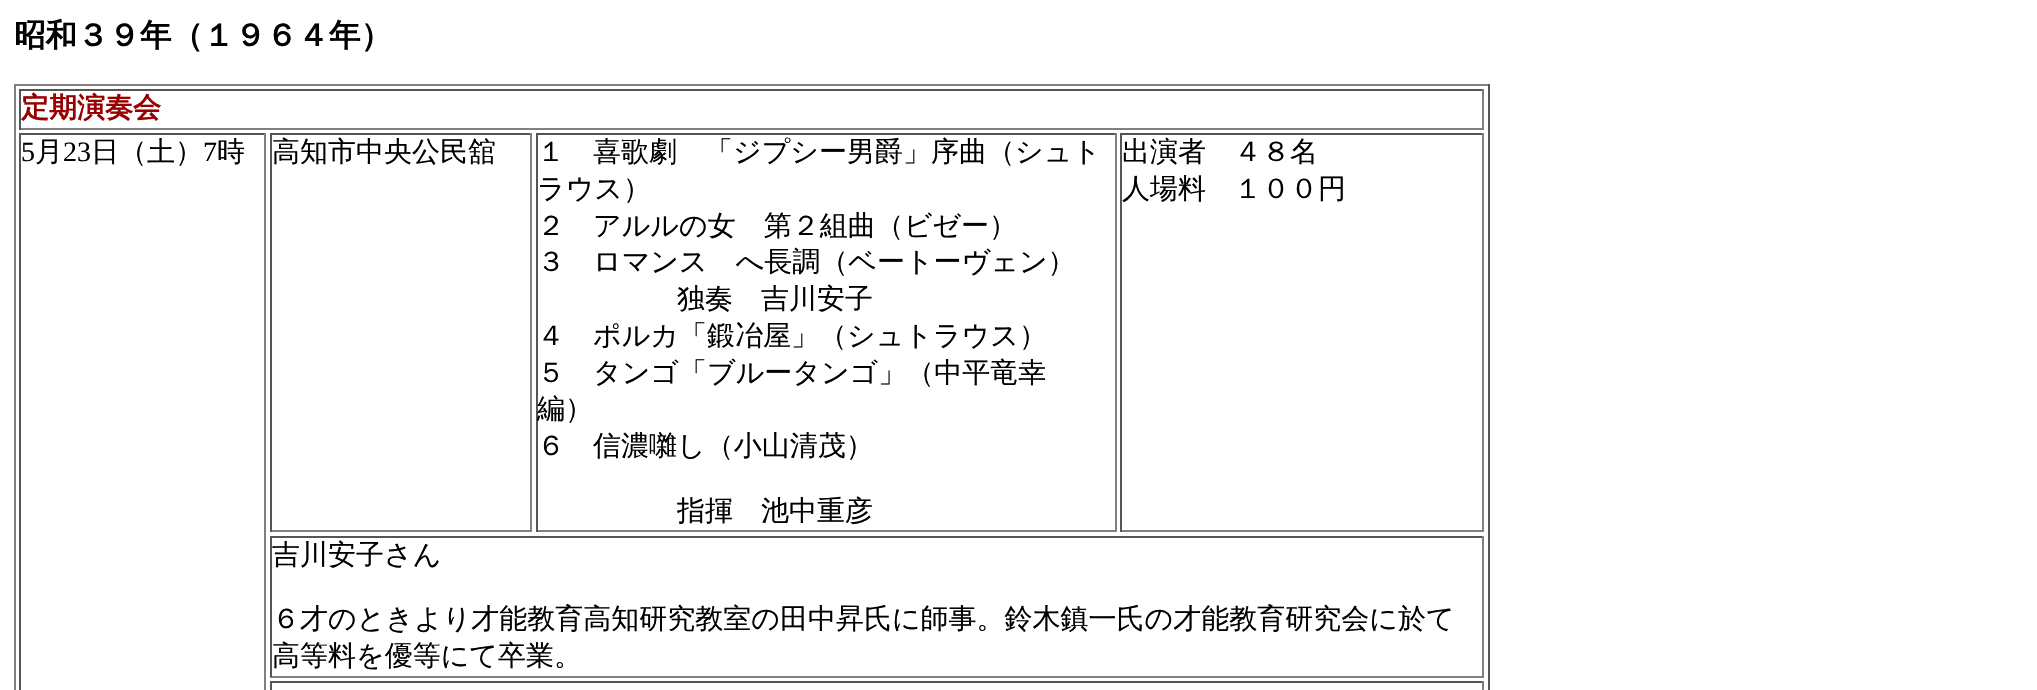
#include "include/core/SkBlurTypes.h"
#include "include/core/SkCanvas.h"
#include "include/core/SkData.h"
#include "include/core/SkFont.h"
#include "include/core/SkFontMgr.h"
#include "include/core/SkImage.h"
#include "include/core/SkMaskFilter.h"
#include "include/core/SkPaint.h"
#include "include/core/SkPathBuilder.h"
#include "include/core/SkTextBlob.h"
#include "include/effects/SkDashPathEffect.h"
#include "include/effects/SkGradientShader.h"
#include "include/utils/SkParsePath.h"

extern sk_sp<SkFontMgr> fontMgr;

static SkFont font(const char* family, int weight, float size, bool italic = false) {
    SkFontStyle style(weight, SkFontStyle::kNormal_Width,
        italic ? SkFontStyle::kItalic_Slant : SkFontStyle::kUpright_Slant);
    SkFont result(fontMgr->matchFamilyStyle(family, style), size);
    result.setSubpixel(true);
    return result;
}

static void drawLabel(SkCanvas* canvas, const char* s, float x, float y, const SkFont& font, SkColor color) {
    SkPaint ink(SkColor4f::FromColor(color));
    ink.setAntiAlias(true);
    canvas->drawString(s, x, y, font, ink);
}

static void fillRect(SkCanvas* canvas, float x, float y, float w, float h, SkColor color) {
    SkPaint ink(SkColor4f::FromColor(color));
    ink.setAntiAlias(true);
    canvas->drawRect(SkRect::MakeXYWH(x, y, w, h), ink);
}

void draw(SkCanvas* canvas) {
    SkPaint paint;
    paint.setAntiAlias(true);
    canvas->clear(0xFFFFFFFF);
    SkFont font1 = font("WenQuanYi Zen Hei", 700, 31.5f);
    drawLabel(canvas, "昭和３９年（１９６４年）", 14, 46, font1, 0xFF000000);
    fillRect(canvas, 14, 84, 1475, 2, 0xFF808080);
    fillRect(canvas, 1488, 84, 2, 606, 0xFF555555);
    fillRect(canvas, 14, 84, 2, 606, 0xFF808080);
    fillRect(canvas, 19, 89, 1465, 2, 0xFF555555);
    fillRect(canvas, 1482, 89, 2, 41, 0xFF808080);
    fillRect(canvas, 19, 128, 1465, 2, 0xFF808080);
    fillRect(canvas, 19, 89, 2, 41, 0xFF555555);
    SkFont font2 = font("WenQuanYi Zen Hei", 700, 28);
    drawLabel(canvas, "定期演奏会", 21, 117, font2, 0xFF990000);
    fillRect(canvas, 19, 133, 247, 2, 0xFF555555);
    fillRect(canvas, 264, 133, 2, 557, 0xFF808080);
    fillRect(canvas, 19, 133, 2, 557, 0xFF555555);
    SkFont font3 = font("Liberation Serif", 400, 28);
    drawLabel(canvas, "5", 21, 161, font3, 0xFF000000);
    SkFont font4 = font("WenQuanYi Zen Hei", 500, 28);
    drawLabel(canvas, "月", 35, 161, font4, 0xFF000000);
    drawLabel(canvas, "23", 63, 161, font3, 0xFF000000);
    drawLabel(canvas, "日（土）", 91, 161, font4, 0xFF000000);
    drawLabel(canvas, "7", 203, 161, font3, 0xFF000000);
    drawLabel(canvas, "時", 217, 161, font4, 0xFF000000);
    fillRect(canvas, 270, 133, 262, 2, 0xFF555555);
    fillRect(canvas, 530, 133, 2, 399, 0xFF808080);
    fillRect(canvas, 270, 530, 262, 2, 0xFF808080);
    fillRect(canvas, 270, 133, 2, 399, 0xFF555555);
    drawLabel(canvas, "高知市中央公民舘", 272, 161, font4, 0xFF000000);
    fillRect(canvas, 536, 133, 581, 2, 0xFF555555);
    fillRect(canvas, 1115, 133, 2, 399, 0xFF808080);
    fillRect(canvas, 536, 530, 581, 2, 0xFF808080);
    fillRect(canvas, 536, 133, 2, 399, 0xFF555555);
    drawLabel(canvas, "１　喜歌劇　「ジプシー男爵」序曲（シュト", 537, 161, font4, 0xFF000000);
    drawLabel(canvas, "ラウス）", 537, 198, font4, 0xFF000000);
    drawLabel(canvas, "２　アルルの女　第２組曲（ビゼー）", 537, 235, font4, 0xFF000000);
    drawLabel(canvas, "３　ロマンス　へ長調（ベートーヴェン）", 537, 271, font4, 0xFF000000);
    drawLabel(canvas, "独奏　吉川安子", 677, 308, font4, 0xFF000000);
    drawLabel(canvas, "４　ポルカ「鍛冶屋」（シュトラウス）", 537, 345, font4, 0xFF000000);
    drawLabel(canvas, "５　タンゴ「ブルータンゴ」（中平竜幸", 537, 382, font4, 0xFF000000);
    drawLabel(canvas, "編）", 537, 418, font4, 0xFF000000);
    drawLabel(canvas, "６　信濃囃し（小山清茂）", 537, 455, font4, 0xFF000000);
    drawLabel(canvas, "指揮　池中重彦", 677, 520, font4, 0xFF000000);
    fillRect(canvas, 1120, 133, 364, 2, 0xFF555555);
    fillRect(canvas, 1482, 133, 2, 399, 0xFF808080);
    fillRect(canvas, 1120, 530, 364, 2, 0xFF808080);
    fillRect(canvas, 1120, 133, 2, 399, 0xFF555555);
    drawLabel(canvas, "出演者　４８名", 1122, 161, font4, 0xFF000000);
    drawLabel(canvas, "人場料　１００円", 1122, 198, font4, 0xFF000000);
    fillRect(canvas, 270, 536, 1214, 2, 0xFF555555);
    fillRect(canvas, 1482, 536, 2, 141, 0xFF808080);
    fillRect(canvas, 270, 676, 1214, 2, 0xFF808080);
    fillRect(canvas, 270, 536, 2, 141, 0xFF555555);
    drawLabel(canvas, "吉川安子さん", 272, 564, font4, 0xFF000000);
    drawLabel(canvas, "６才のときより才能教育高知研究教室の田中昇氏に師事。鈴木鎮一氏の才能教育研究会に於て", 272, 628, font4, 0xFF000000);
    drawLabel(canvas, "高等料を優等にて卒業。", 272, 665, font4, 0xFF000000);
    fillRect(canvas, 270, 681, 1214, 2, 0xFF555555);
    fillRect(canvas, 1482, 681, 2, 9, 0xFF808080);
    fillRect(canvas, 270, 681, 2, 9, 0xFF555555);
}
